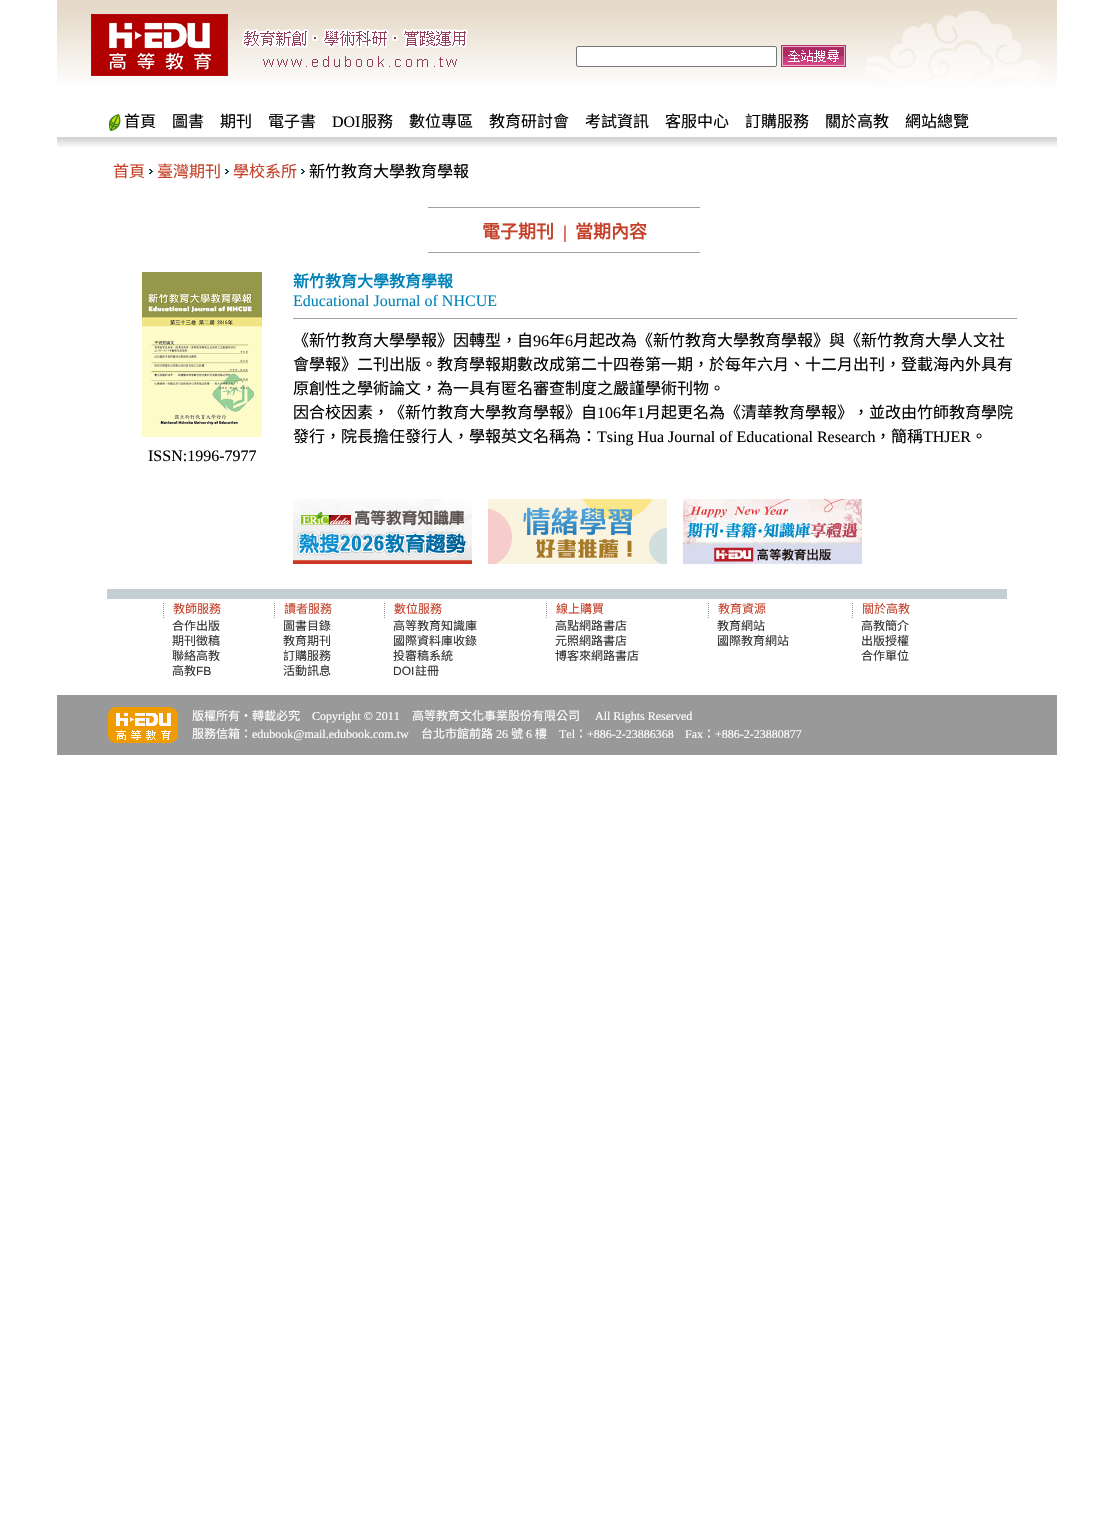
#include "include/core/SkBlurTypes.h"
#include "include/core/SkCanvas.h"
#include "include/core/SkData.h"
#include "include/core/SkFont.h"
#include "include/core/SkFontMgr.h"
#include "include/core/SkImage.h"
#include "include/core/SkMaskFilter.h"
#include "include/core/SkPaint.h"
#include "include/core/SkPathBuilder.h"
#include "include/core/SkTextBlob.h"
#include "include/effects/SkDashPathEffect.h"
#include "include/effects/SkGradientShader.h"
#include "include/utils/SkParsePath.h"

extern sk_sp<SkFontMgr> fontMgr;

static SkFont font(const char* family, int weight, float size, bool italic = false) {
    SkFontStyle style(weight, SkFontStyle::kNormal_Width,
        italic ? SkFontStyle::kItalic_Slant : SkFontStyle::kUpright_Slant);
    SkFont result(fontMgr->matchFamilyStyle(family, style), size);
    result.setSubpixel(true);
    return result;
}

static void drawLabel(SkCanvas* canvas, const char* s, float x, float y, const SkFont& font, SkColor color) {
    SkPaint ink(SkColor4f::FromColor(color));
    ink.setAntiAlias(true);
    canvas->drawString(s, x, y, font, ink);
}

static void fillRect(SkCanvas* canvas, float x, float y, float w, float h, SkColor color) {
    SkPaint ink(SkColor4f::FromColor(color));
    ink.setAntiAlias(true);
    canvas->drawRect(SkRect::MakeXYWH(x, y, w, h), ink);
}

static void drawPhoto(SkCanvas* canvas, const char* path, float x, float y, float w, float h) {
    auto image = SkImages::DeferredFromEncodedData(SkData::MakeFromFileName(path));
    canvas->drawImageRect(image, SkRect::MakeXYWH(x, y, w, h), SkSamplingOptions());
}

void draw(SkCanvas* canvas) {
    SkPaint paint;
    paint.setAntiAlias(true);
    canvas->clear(0xFFFFFFFF);
    drawPhoto(canvas, "assets/img1.png", 57, 0, 1000, 84);
    drawPhoto(canvas, "assets/img2.png", 91, 14, 137, 62);
    drawPhoto(canvas, "assets/img3.png", 242, 29, 226, 38);
    paint.setColor(0xFFFFFFFF);
    canvas->drawRoundRect(SkRect::MakeXYWH(576.5f, 46.5f, 200, 20), 1.5f, 1.5f, paint);
    paint.setStroke(true);
    paint.setStrokeWidth(1);
    paint.setColor(0xFF767676);
    canvas->drawRoundRect(SkRect::MakeXYWH(576.5f, 46.5f, 200, 20), 1.5f, 1.5f, paint);
    drawPhoto(canvas, "assets/img4.png", 781, 45, 65, 22);
    drawPhoto(canvas, "assets/img5.png", 867, 11, 190, 76);
    drawPhoto(canvas, "assets/img6.png", 109, 114, 12, 17);
    SkFont font1 = font("Noto Sans CJK TC", 400, 16);
    drawLabel(canvas, "首頁", 124, 127, font1, 0xFF000000);
    drawLabel(canvas, "圖書", 172, 127, font1, 0xFF000000);
    drawLabel(canvas, "期刊", 220, 127, font1, 0xFF000000);
    drawLabel(canvas, "電子書", 268, 127, font1, 0xFF000000);
    SkFont font2 = font("Liberation Serif", 400, 16);
    drawLabel(canvas, "DOI", 332, 127, font2, 0xFF000000);
    drawLabel(canvas, "服務", 361, 127, font1, 0xFF000000);
    drawLabel(canvas, "數位專區", 409, 127, font1, 0xFF000000);
    drawLabel(canvas, "教育研討會", 489, 127, font1, 0xFF000000);
    drawLabel(canvas, "考試資訊", 585, 127, font1, 0xFF000000);
    drawLabel(canvas, "客服中心", 665, 127, font1, 0xFF000000);
    drawLabel(canvas, "訂購服務", 745, 127, font1, 0xFF000000);
    drawLabel(canvas, "關於高教", 825, 127, font1, 0xFF000000);
    drawLabel(canvas, "網站總覽", 905, 127, font1, 0xFF000000);
    drawPhoto(canvas, "assets/img7.png", 57, 137, 1000, 10);
    drawLabel(canvas, "首頁", 113, 177, font1, 0xFFC54129);
    drawPhoto(canvas, "assets/img8.png", 149, 169, 4, 5);
    drawLabel(canvas, "臺灣期刊", 157, 177, font1, 0xFFC54129);
    drawPhoto(canvas, "assets/img8.png", 225, 169, 4, 5);
    drawLabel(canvas, "學校系所", 233, 177, font1, 0xFFC54129);
    drawPhoto(canvas, "assets/img8.png", 301, 169, 4, 5);
    drawLabel(canvas, "新竹教育大學教育學報", 309, 177, font1, 0xFF000000);
    fillRect(canvas, 428, 207, 273, 1, 0xFF9F9F9F);
    fillRect(canvas, 700, 207, 1, 1, 0xFFEEEEEE);
    SkFont font3 = font("Noto Sans CJK TC", 700, 18);
    drawLabel(canvas, "電子期刊", 482, 238, font3, 0xFFC54129);
    SkFont font4 = font("Liberation Serif", 700, 18);
    drawLabel(canvas, "|", 563, 238, font4, 0xFFC54129);
    drawLabel(canvas, "當期內容", 575, 238, font3, 0xFFC54129);
    fillRect(canvas, 428, 252, 273, 1, 0xFF9F9F9F);
    fillRect(canvas, 700, 252, 1, 1, 0xFFEEEEEE);
    SkFont font5 = font("Noto Sans CJK TC", 700, 16);
    drawLabel(canvas, "新竹教育大學教育學報", 293, 287, font5, 0xFF0183B9);
    drawLabel(canvas, "Educational Journal of NHCUE", 293, 306, font2, 0xFF0183B9);
    fillRect(canvas, 293, 318, 725, 1, 0xFF9F9F9F);
    fillRect(canvas, 1017, 318, 1, 1, 0xFFEEEEEE);
    drawPhoto(canvas, "assets/img9.png", 142, 272, 120, 165);
    drawLabel(canvas, "ISSN:1996-7977", 148, 461, font2, 0xFF000000);
    drawLabel(canvas, "《新竹教育大學學報》因轉型，自", 293, 346, font1, 0xFF000000);
    drawLabel(canvas, "96", 533, 346, font2, 0xFF000000);
    drawLabel(canvas, "年", 549, 346, font1, 0xFF000000);
    drawLabel(canvas, "6", 565, 346, font2, 0xFF000000);
    drawLabel(canvas, "月起改為《新竹教育大學教育學報》與《新竹教育大學人文社", 573, 346, font1, 0xFF000000);
    drawLabel(canvas, "會學報》二刊出版。教育學報期數改成第二十四卷第一期，於每年六月、十二月出刊，登載海內外具有", 293, 370, font1, 0xFF000000);
    drawLabel(canvas, "原創性之學術論文，為一具有匿名審查制度之嚴謹學術刊物。", 293, 394, font1, 0xFF000000);
    drawLabel(canvas, "因合校因素，《新竹教育大學教育學報》自", 293, 418, font1, 0xFF000000);
    drawLabel(canvas, "106", 597, 418, font2, 0xFF000000);
    drawLabel(canvas, "年", 621, 418, font1, 0xFF000000);
    drawLabel(canvas, "1", 637, 418, font2, 0xFF000000);
    drawLabel(canvas, "月起更名為《清華教育學報》，並改由竹師教育學院", 645, 418, font1, 0xFF000000);
    drawLabel(canvas, "發行，院長擔任發行人，學報英文名稱為：", 293, 442, font1, 0xFF000000);
    drawLabel(canvas, "Tsing Hua Journal of Educational Research", 597, 442, font2, 0xFF000000);
    drawLabel(canvas, "，簡稱", 875, 442, font1, 0xFF000000);
    drawLabel(canvas, "THJER", 923, 442, font2, 0xFF000000);
    drawLabel(canvas, "。", 971, 442, font1, 0xFF000000);
    drawPhoto(canvas, "assets/img10.png", 293, 499, 179, 65);
    drawPhoto(canvas, "assets/img11.png", 488, 499, 179, 65);
    drawPhoto(canvas, "assets/img12.png", 683, 499, 179, 65);
    fillRect(canvas, 107, 589, 900, 10, 0xFFC4CFD3);
    drawPhoto(canvas, "assets/img13.png", 163, 603, 1, 15);
    SkFont font6 = font("Noto Sans CJK TC", 400, 12);
    drawLabel(canvas, "教師服務", 173, 613, font6, 0xFFC54129);
    drawLabel(canvas, "合作出版", 172, 630, font6, 0xFF333333);
    drawLabel(canvas, "期刊徵稿", 172, 645, font6, 0xFF333333);
    drawLabel(canvas, "聯絡高教", 172, 660, font6, 0xFF333333);
    drawLabel(canvas, "高教", 172, 675, font6, 0xFF333333);
    SkFont font7 = font("Liberation Sans", 400, 12);
    drawLabel(canvas, "FB", 196, 675, font7, 0xFF333333);
    drawPhoto(canvas, "assets/img13.png", 274, 603, 1, 15);
    drawLabel(canvas, "讀者服務", 284, 613, font6, 0xFFC54129);
    drawLabel(canvas, "圖書目錄", 283, 630, font6, 0xFF333333);
    drawLabel(canvas, "教育期刊", 283, 645, font6, 0xFF333333);
    drawLabel(canvas, "訂購服務", 283, 660, font6, 0xFF333333);
    drawLabel(canvas, "活動訊息", 283, 675, font6, 0xFF333333);
    drawPhoto(canvas, "assets/img13.png", 384, 603, 1, 15);
    drawLabel(canvas, "數位服務", 394, 613, font6, 0xFFC54129);
    drawLabel(canvas, "高等教育知識庫", 393, 630, font6, 0xFF333333);
    drawLabel(canvas, "國際資料庫收錄", 393, 645, font6, 0xFF333333);
    drawLabel(canvas, "投審稿系統", 393, 660, font6, 0xFF333333);
    drawLabel(canvas, "DOI", 393, 675, font7, 0xFF333333);
    drawLabel(canvas, "註冊", 415, 675, font6, 0xFF333333);
    drawPhoto(canvas, "assets/img13.png", 546, 603, 1, 15);
    drawLabel(canvas, "線上購買", 556, 613, font6, 0xFFC54129);
    drawLabel(canvas, "高點網路書店", 555, 630, font6, 0xFF333333);
    drawLabel(canvas, "元照網路書店", 555, 645, font6, 0xFF333333);
    drawLabel(canvas, "博客來網路書店", 555, 660, font6, 0xFF333333);
    drawPhoto(canvas, "assets/img13.png", 708, 603, 1, 15);
    drawLabel(canvas, "教育資源", 718, 613, font6, 0xFFC54129);
    drawLabel(canvas, "教育網站", 717, 630, font6, 0xFF333333);
    drawLabel(canvas, "國際教育網站", 717, 645, font6, 0xFF333333);
    drawPhoto(canvas, "assets/img13.png", 852, 603, 1, 15);
    drawLabel(canvas, "關於高教", 862, 613, font6, 0xFFC54129);
    drawLabel(canvas, "高教簡介", 861, 630, font6, 0xFF333333);
    drawLabel(canvas, "出版授權", 861, 645, font6, 0xFF333333);
    drawLabel(canvas, "合作單位", 861, 660, font6, 0xFF333333);
    fillRect(canvas, 57, 695, 1000, 60, 0xFF999999);
    drawPhoto(canvas, "assets/img14.png", 108, 707, 70, 36);
    drawLabel(canvas, "版權所有‧轉載必究", 192, 720, font6, 0xFFFFFFFF);
    SkFont font8 = font("Liberation Serif", 400, 12);
    drawLabel(canvas, "Copyright © 2011", 312, 720, font8, 0xFFFFFFFF);
    drawLabel(canvas, "高等教育文化事業股份有限公司", 412, 720, font6, 0xFFFFFFFF);
    drawLabel(canvas, "All Rights Reserved", 595, 720, font8, 0xFFFFFFFF);
    drawLabel(canvas, "服務信箱：", 192, 738, font6, 0xFFFFFFFF);
    drawLabel(canvas, "edubook@mail.edubook.com.tw", 252, 738, font8, 0xFFFFFFFF);
    drawLabel(canvas, "台北市館前路", 421, 738, font6, 0xFFFFFFFF);
    drawLabel(canvas, "26", 496, 738, font8, 0xFFFFFFFF);
    drawLabel(canvas, "號", 511, 738, font6, 0xFFFFFFFF);
    drawLabel(canvas, "6", 526, 738, font8, 0xFFFFFFFF);
    drawLabel(canvas, "樓", 535, 738, font6, 0xFFFFFFFF);
    drawLabel(canvas, "Tel", 559, 738, font8, 0xFFFFFFFF);
    drawLabel(canvas, "：", 575, 738, font6, 0xFFFFFFFF);
    drawLabel(canvas, "+886-2-23886368", 587, 738, font8, 0xFFFFFFFF);
    drawLabel(canvas, "Fax", 685, 738, font8, 0xFFFFFFFF);
    drawLabel(canvas, "：", 703, 738, font6, 0xFFFFFFFF);
    drawLabel(canvas, "+886-2-23880877", 715, 738, font8, 0xFFFFFFFF);
}
